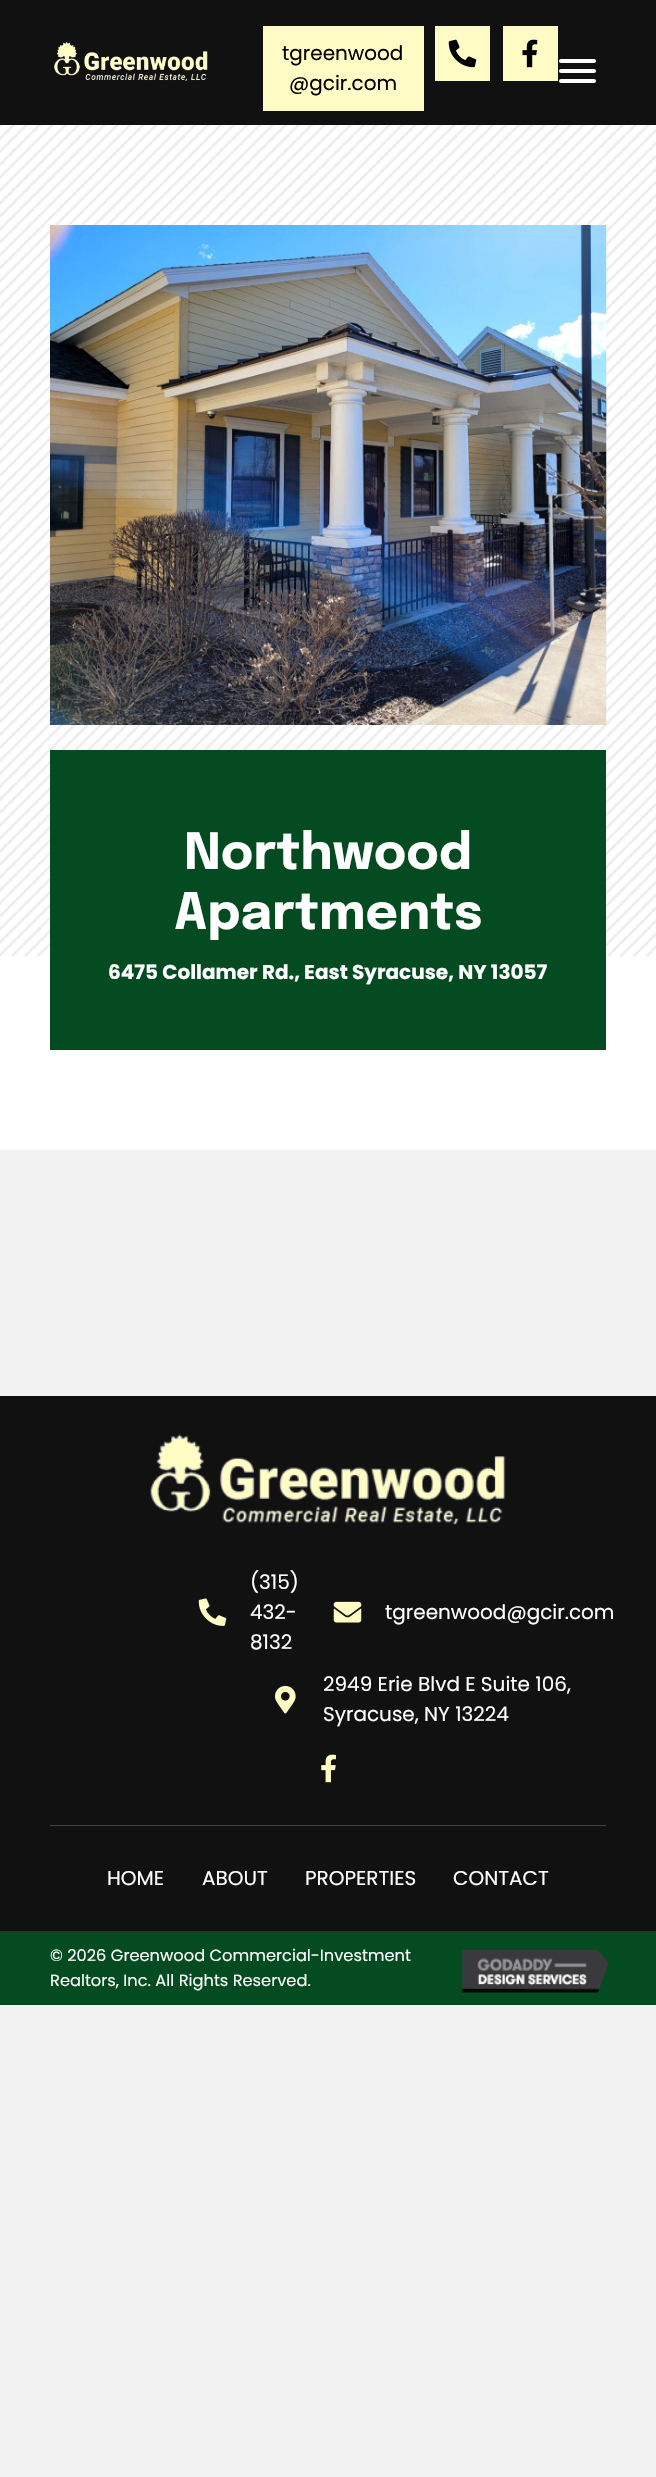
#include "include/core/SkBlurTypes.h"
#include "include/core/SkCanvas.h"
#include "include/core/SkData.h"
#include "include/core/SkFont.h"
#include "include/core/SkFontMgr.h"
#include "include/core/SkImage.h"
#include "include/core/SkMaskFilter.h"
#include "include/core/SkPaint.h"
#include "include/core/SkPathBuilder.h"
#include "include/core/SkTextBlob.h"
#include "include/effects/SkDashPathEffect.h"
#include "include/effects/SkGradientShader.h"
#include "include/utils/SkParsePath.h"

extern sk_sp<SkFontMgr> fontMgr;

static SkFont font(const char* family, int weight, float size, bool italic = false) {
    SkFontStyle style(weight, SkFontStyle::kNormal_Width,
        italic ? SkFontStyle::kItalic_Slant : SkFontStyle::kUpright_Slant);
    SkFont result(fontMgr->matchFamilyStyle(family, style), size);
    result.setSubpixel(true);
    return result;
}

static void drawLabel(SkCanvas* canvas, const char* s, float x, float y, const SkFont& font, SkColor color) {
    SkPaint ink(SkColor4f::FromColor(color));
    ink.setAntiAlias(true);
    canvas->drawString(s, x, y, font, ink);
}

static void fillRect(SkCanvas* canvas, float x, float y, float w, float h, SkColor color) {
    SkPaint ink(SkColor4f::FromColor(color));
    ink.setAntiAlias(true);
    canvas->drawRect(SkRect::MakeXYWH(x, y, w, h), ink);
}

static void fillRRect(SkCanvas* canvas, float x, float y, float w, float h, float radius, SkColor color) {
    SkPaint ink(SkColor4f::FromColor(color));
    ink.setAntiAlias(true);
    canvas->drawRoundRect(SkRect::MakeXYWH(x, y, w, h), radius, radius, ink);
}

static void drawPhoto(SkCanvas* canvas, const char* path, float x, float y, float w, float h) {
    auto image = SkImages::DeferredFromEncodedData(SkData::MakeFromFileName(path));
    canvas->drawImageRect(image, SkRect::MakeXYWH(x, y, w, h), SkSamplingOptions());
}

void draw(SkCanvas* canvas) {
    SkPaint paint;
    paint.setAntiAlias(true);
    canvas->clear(0xFFF2F2F2);
    fillRect(canvas, 0, 0, 656, 125, 0xFF111111);
    drawPhoto(canvas, "assets/img1.png", 54, 42, 154, 39);
    fillRect(canvas, 263, 26, 161, 85, 0xFFFFFBC4);
    SkFont font1 = font("Poppins", 400, 20);
    drawLabel(canvas, "tgreenwood", 282, 60, font1, 0xFF000000);
    drawLabel(canvas, "@gcir.com", 289, 90, font1, 0xFF000000);
    fillRect(canvas, 435, 26, 55, 55, 0xFFFFFBC4);
    drawPhoto(canvas, "assets/img2.png", 448, 39, 29, 29);
    fillRect(canvas, 503, 26, 55, 55, 0xFFFFFBC4);
    drawPhoto(canvas, "assets/img3.png", 522, 39, 16, 29);
    fillRRect(canvas, 559, 69, 37, 4, 2, 0xFFFFFFFF);
    fillRRect(canvas, 559, 59, 37, 4, 2, 0xFFFFFFFF);
    fillRRect(canvas, 559, 79, 37, 4, 2, 0xFFFFFFFF);
    fillRect(canvas, 0, 125, 656, 1025, 0xFFFFFFFF);
    drawPhoto(canvas, "assets/img4.png", 0, 125, 656, 832);
    drawPhoto(canvas, "assets/img5.png", 50, 225, 557, 500);
    fillRect(canvas, 50, 750, 556, 300, 0xFF044B21);
    SkFont font2 = font("Epilogue", 700, 50);
    drawLabel(canvas, "Northwood", 184, 869, font2, 0xFFFFFFFF);
    drawLabel(canvas, "Apartments", 174, 929, font2, 0xFFFFFFFF);
    SkFont font3 = font("Poppins", 700, 20);
    drawLabel(canvas, "6475 Collamer Rd., East Syracuse, NY 13057", 108, 979, font3, 0xFFFFFFFF);
    fillRect(canvas, 0, 1396, 656, 535, 0xFF111111);
    drawPhoto(canvas, "assets/img6.png", 150, 1434, 356, 91);
    drawPhoto(canvas, "assets/img7.png", 198, 1598, 29, 28);
    drawLabel(canvas, "(315)", 250, 1589, font1, 0xFFFFFFFF);
    drawLabel(canvas, "432-", 250, 1619, font1, 0xFFFFFFFF);
    drawLabel(canvas, "8132", 250, 1649, font1, 0xFFFFFFFF);
    drawPhoto(canvas, "assets/img8.png", 333, 1601, 29, 22);
    drawLabel(canvas, "tgreenwood@gcir.com", 385, 1619, font1, 0xFFFFFFFF);
    drawPhoto(canvas, "assets/img9.png", 275, 1685, 21, 29);
    drawLabel(canvas, "2949 Erie Blvd E Suite 106,", 323, 1691, font1, 0xFFFFFFFF);
    drawLabel(canvas, "Syracuse, NY 13224", 323, 1721, font1, 0xFFFFFFFF);
    drawPhoto(canvas, "assets/img10.png", 321, 1754, 15, 29);
    fillRect(canvas, 50, 1825, 556, 1, 0xFF424242);
    drawLabel(canvas, "HOME", 107, 1885, font1, 0xFFFFFFFF);
    drawLabel(canvas, "ABOUT", 202, 1885, font1, 0xFFFFFFFF);
    drawLabel(canvas, "PROPERTIES", 305, 1885, font1, 0xFFFFFFFF);
    drawLabel(canvas, "CONTACT", 453, 1885, font1, 0xFFFFFFFF);
    fillRect(canvas, 0, 1931, 656, 74, 0xFF044B21);
    SkFont font4 = font("Poppins", 400, 16.25f);
    drawLabel(canvas, "© 2026 Greenwood Commercial-Investment", 50, 1961, font4, 0xFFFFFFFF);
    drawLabel(canvas, "Realtors, Inc. All Rights Reserved.", 50, 1986, font4, 0xFFFFFFFF);
    drawPhoto(canvas, "assets/img11.png", 462, 1950, 147, 43);
}
